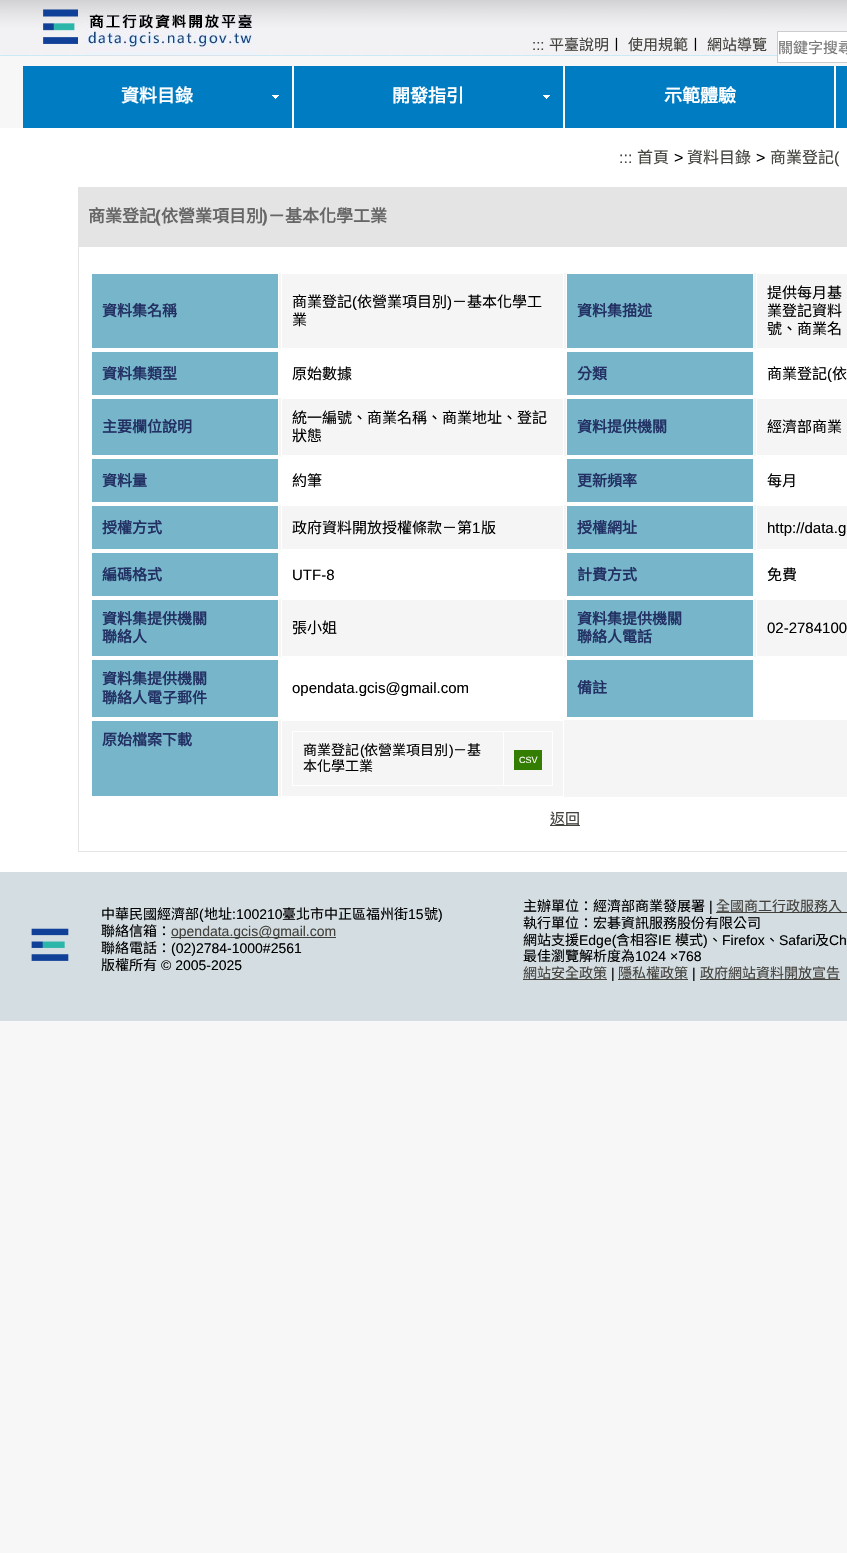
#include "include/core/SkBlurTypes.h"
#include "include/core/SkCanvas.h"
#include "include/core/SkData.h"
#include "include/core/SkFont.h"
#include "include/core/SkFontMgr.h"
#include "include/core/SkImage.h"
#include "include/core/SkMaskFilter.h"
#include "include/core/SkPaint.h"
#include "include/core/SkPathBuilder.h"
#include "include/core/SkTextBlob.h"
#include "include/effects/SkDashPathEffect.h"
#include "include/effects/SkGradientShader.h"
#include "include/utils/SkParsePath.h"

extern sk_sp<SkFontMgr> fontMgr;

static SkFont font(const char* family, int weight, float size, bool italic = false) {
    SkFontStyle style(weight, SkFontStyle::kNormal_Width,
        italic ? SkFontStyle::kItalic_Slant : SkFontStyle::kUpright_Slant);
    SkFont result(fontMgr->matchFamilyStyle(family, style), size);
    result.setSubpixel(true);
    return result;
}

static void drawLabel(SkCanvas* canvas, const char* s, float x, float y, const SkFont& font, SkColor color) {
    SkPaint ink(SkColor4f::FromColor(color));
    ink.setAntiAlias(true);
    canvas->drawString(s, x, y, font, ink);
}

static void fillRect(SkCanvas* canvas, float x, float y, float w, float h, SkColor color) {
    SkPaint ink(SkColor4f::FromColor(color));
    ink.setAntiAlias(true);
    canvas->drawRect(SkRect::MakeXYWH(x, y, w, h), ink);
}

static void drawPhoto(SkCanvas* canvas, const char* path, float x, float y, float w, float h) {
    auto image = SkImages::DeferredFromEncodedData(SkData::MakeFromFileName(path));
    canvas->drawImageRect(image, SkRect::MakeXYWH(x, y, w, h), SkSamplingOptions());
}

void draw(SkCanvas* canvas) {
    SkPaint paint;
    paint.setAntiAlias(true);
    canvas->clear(0xFFF7F7F7);
    drawPhoto(canvas, "assets/img1.png", 0, 0, 847, 56);
    drawPhoto(canvas, "assets/img2.png", 43, 9, 35, 35);
    drawPhoto(canvas, "assets/img3.png", 85, 8, 171, 48);
    SkFont font1 = font("Liberation Sans", 400, 15);
    drawLabel(canvas, ":::", 532, 50, font1, 0xFF42413C);
    SkFont font2 = font("Noto Sans CJK TC", 400, 15);
    drawLabel(canvas, "平臺說明", 549, 50, font2, 0xFF42413C);
    drawLabel(canvas, "〡", 609, 50, font2, 0xFF000000);
    drawLabel(canvas, "使用規範", 628, 50, font2, 0xFF42413C);
    drawLabel(canvas, "〡", 688, 50, font2, 0xFF000000);
    drawLabel(canvas, "網站導覽", 707, 50, font2, 0xFF42413C);
    paint.setColor(0xFFFFFFFF);
    canvas->drawRect(SkRect::MakeXYWH(777.5f, 31.5f, 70, 31), paint);
    paint.setStroke(true);
    paint.setStrokeWidth(1);
    paint.setColor(0xFFCCCCCC);
    canvas->drawRect(SkRect::MakeXYWH(777.5f, 31.5f, 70, 31), paint);
    drawLabel(canvas, "關鍵字搜尋", 778, 53, font2, 0xFF757575);
    fillRect(canvas, 23, 66, 269, 62, 0xFF007CC2);
    drawPhoto(canvas, "assets/img4.png", 272, 95, 7, 4);
    fillRect(canvas, 292, 66, 2, 62, 0xFFFFFFFF);
    SkFont font3 = font("Noto Sans CJK TC", 700, 18);
    drawLabel(canvas, "資料目錄", 121, 102, font3, 0xFFFFFFFF);
    fillRect(canvas, 294, 66, 269, 62, 0xFF007CC2);
    drawPhoto(canvas, "assets/img4.png", 543, 95, 7, 4);
    fillRect(canvas, 563, 66, 2, 62, 0xFFFFFFFF);
    drawLabel(canvas, "開發指引", 392, 102, font3, 0xFFFFFFFF);
    fillRect(canvas, 565, 66, 269, 62, 0xFF007CC2);
    fillRect(canvas, 834, 66, 2, 62, 0xFFFFFFFF);
    drawLabel(canvas, "示範體驗", 664, 102, font3, 0xFFFFFFFF);
    fillRect(canvas, 836, 66, 11, 62, 0xFF007CC2);
    fillRect(canvas, 0, 128, 847, 744, 0xFFFFFFFF);
    SkFont font4 = font("Liberation Sans", 400, 16);
    drawLabel(canvas, ":::", 619, 163, font4, 0xFF42413C);
    SkFont font5 = font("Noto Sans CJK TC", 400, 16);
    drawLabel(canvas, "首頁", 637, 163, font5, 0xFF42413C);
    drawLabel(canvas, ">", 674, 163, font4, 0xFF000000);
    drawLabel(canvas, "資料目錄", 687, 163, font5, 0xFF42413C);
    drawLabel(canvas, ">", 756, 163, font4, 0xFF000000);
    drawLabel(canvas, "商業登記", 770, 163, font5, 0xFF42413C);
    drawLabel(canvas, "(", 834, 163, font4, 0xFF42413C);
    paint.setColor(0xFFE4E4E4);
    canvas->drawRect(SkRect::MakeXYWH(78.5f, 187.5f, 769, 664), paint);
    fillRect(canvas, 79, 188, 768, 59, 0xFFE4E4E4);
    SkFont font6 = font("Noto Sans CJK TC", 700, 17);
    drawLabel(canvas, "商業登記", 88, 222, font6, 0xFF666666);
    SkFont font7 = font("Liberation Sans", 700, 17);
    drawLabel(canvas, "(", 155, 222, font7, 0xFF666666);
    drawLabel(canvas, "依營業項目別", 161, 222, font6, 0xFF666666);
    drawLabel(canvas, ")", 262, 222, font7, 0xFF666666);
    drawLabel(canvas, "－基本化學工業", 268, 222, font6, 0xFF666666);
    fillRect(canvas, 279, 273, 568, 76, 0xFFF5F5F5);
    fillRect(canvas, 92, 274, 186, 74, 0xFF77B6CA);
    SkFont font8 = font("Noto Sans CJK TC", 700, 15);
    drawLabel(canvas, "資料集名稱", 102, 316, font8, 0xFF223063);
    paint.setColor(0xFFFFFFFF);
    canvas->drawRect(SkRect::MakeXYWH(281.5f, 273.5f, 282, 75), paint);
    drawLabel(canvas, "商業登記", 292, 307, font2, 0xFF000000);
    drawLabel(canvas, "(", 352, 307, font1, 0xFF000000);
    drawLabel(canvas, "依營業項目別", 357, 307, font2, 0xFF000000);
    drawLabel(canvas, ")", 447, 307, font1, 0xFF000000);
    drawLabel(canvas, "－基本化學工", 452, 307, font2, 0xFF000000);
    drawLabel(canvas, "業", 292, 325, font2, 0xFF000000);
    paint.setStroke(false);
    paint.setColor(0xFF77B6CA);
    canvas->drawRect(SkRect::MakeXYWH(566.5f, 273.5f, 187, 75), paint);
    paint.setStroke(true);
    paint.setColor(0xFFFFFFFF);
    canvas->drawRect(SkRect::MakeXYWH(566.5f, 273.5f, 187, 75), paint);
    drawLabel(canvas, "資料集描述", 577, 316, font8, 0xFF223063);
    canvas->drawRect(SkRect::MakeXYWH(756.5f, 273.5f, 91, 75), paint);
    drawLabel(canvas, "提供每月基", 767, 298, font2, 0xFF000000);
    drawLabel(canvas, "業登記資料", 767, 316, font2, 0xFF000000);
    drawLabel(canvas, "號、商業名", 767, 334, font2, 0xFF000000);
    fillRect(canvas, 92, 352, 186, 43, 0xFF77B6CA);
    drawLabel(canvas, "資料集類型", 102, 379, font8, 0xFF223063);
    drawLabel(canvas, "原始數據", 292, 379, font2, 0xFF000000);
    fillRect(canvas, 567, 352, 186, 43, 0xFF77B6CA);
    drawLabel(canvas, "分類", 577, 379, font8, 0xFF223063);
    drawLabel(canvas, "商業登記", 767, 379, font2, 0xFF000000);
    drawLabel(canvas, "(", 827, 379, font1, 0xFF000000);
    drawLabel(canvas, "依", 832, 379, font2, 0xFF000000);
    fillRect(canvas, 279, 398, 568, 58, 0xFFF5F5F5);
    fillRect(canvas, 92, 399, 186, 56, 0xFF77B6CA);
    drawLabel(canvas, "主要欄位說明", 102, 432, font8, 0xFF223063);
    canvas->drawRect(SkRect::MakeXYWH(281.5f, 398.5f, 282, 57), paint);
    drawLabel(canvas, "統一編號、商業名稱、商業地址、登記", 292, 423, font2, 0xFF000000);
    drawLabel(canvas, "狀態", 292, 441, font2, 0xFF000000);
    paint.setStroke(false);
    paint.setColor(0xFF77B6CA);
    canvas->drawRect(SkRect::MakeXYWH(566.5f, 398.5f, 187, 57), paint);
    paint.setStroke(true);
    paint.setColor(0xFFFFFFFF);
    canvas->drawRect(SkRect::MakeXYWH(566.5f, 398.5f, 187, 57), paint);
    drawLabel(canvas, "資料提供機關", 577, 432, font8, 0xFF223063);
    canvas->drawRect(SkRect::MakeXYWH(756.5f, 398.5f, 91, 57), paint);
    drawLabel(canvas, "經濟部商業", 767, 432, font2, 0xFF000000);
    fillRect(canvas, 92, 459, 186, 43, 0xFF77B6CA);
    drawLabel(canvas, "資料量", 102, 486, font8, 0xFF223063);
    drawLabel(canvas, "約筆", 292, 486, font2, 0xFF000000);
    fillRect(canvas, 567, 459, 186, 43, 0xFF77B6CA);
    drawLabel(canvas, "更新頻率", 577, 486, font8, 0xFF223063);
    drawLabel(canvas, "每月", 767, 486, font2, 0xFF000000);
    fillRect(canvas, 279, 505, 568, 45, 0xFFF5F5F5);
    fillRect(canvas, 92, 506, 186, 43, 0xFF77B6CA);
    drawLabel(canvas, "授權方式", 102, 533, font8, 0xFF223063);
    canvas->drawRect(SkRect::MakeXYWH(281.5f, 505.5f, 282, 44), paint);
    drawLabel(canvas, "政府資料開放授權條款－第", 292, 533, font2, 0xFF000000);
    drawLabel(canvas, "1", 472, 533, font1, 0xFF000000);
    drawLabel(canvas, "版", 481, 533, font2, 0xFF000000);
    paint.setStroke(false);
    paint.setColor(0xFF77B6CA);
    canvas->drawRect(SkRect::MakeXYWH(566.5f, 505.5f, 187, 44), paint);
    paint.setStroke(true);
    paint.setColor(0xFFFFFFFF);
    canvas->drawRect(SkRect::MakeXYWH(566.5f, 505.5f, 187, 44), paint);
    drawLabel(canvas, "授權網址", 577, 533, font8, 0xFF223063);
    canvas->drawRect(SkRect::MakeXYWH(756.5f, 505.5f, 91, 44), paint);
    drawLabel(canvas, "http://data.g", 767, 533, font1, 0xFF000000);
    fillRect(canvas, 92, 553, 186, 43, 0xFF77B6CA);
    drawLabel(canvas, "編碼格式", 102, 580, font8, 0xFF223063);
    drawLabel(canvas, "UTF-8", 292, 580, font1, 0xFF000000);
    fillRect(canvas, 567, 553, 186, 43, 0xFF77B6CA);
    drawLabel(canvas, "計費方式", 577, 580, font8, 0xFF223063);
    drawLabel(canvas, "免費", 767, 580, font2, 0xFF000000);
    fillRect(canvas, 279, 599, 568, 58, 0xFFF5F5F5);
    fillRect(canvas, 92, 600, 186, 56, 0xFF77B6CA);
    drawLabel(canvas, "資料集提供機關", 102, 624, font8, 0xFF223063);
    drawLabel(canvas, "聯絡人", 102, 642, font8, 0xFF223063);
    canvas->drawRect(SkRect::MakeXYWH(281.5f, 599.5f, 282, 57), paint);
    drawLabel(canvas, "張小姐", 292, 633, font2, 0xFF000000);
    paint.setStroke(false);
    paint.setColor(0xFF77B6CA);
    canvas->drawRect(SkRect::MakeXYWH(566.5f, 599.5f, 187, 57), paint);
    paint.setStroke(true);
    paint.setColor(0xFFFFFFFF);
    canvas->drawRect(SkRect::MakeXYWH(566.5f, 599.5f, 187, 57), paint);
    drawLabel(canvas, "資料集提供機關", 577, 624, font8, 0xFF223063);
    drawLabel(canvas, "聯絡人電話", 577, 642, font8, 0xFF223063);
    canvas->drawRect(SkRect::MakeXYWH(756.5f, 599.5f, 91, 57), paint);
    drawLabel(canvas, "02-2784100", 767, 633, font1, 0xFF000000);
    fillRect(canvas, 92, 660, 186, 57, 0xFF77B6CA);
    drawLabel(canvas, "資料集提供機關", 102, 684, font8, 0xFF223063);
    drawLabel(canvas, "聯絡人電子郵件", 102, 703, font8, 0xFF223063);
    drawLabel(canvas, "opendata.gcis@gmail.com", 292, 693, font1, 0xFF000000);
    fillRect(canvas, 567, 660, 186, 57, 0xFF77B6CA);
    drawLabel(canvas, "備註", 577, 693, font8, 0xFF223063);
    fillRect(canvas, 279, 720, 568, 77, 0xFFF5F5F5);
    fillRect(canvas, 92, 721, 186, 75, 0xFF77B6CA);
    drawLabel(canvas, "原始檔案下載", 102, 745, font8, 0xFF223063);
    canvas->drawRect(SkRect::MakeXYWH(281.5f, 720.5f, 282, 76), paint);
    fillRect(canvas, 292, 732, 261, 53, 0xFFFFFFFF);
    fillRect(canvas, 293, 732, 259, 53, 0xFFF5F5F5);
    fillRect(canvas, 503, 731, 50, 1, 0xFFFFFFFF);
    fillRect(canvas, 503, 785, 50, 1, 0xFFFFFFFF);
    fillRect(canvas, 503, 731, 1, 55, 0xFFFFFFFF);
    fillRect(canvas, 292, 731, 212, 1, 0xFFFFFFFF);
    fillRect(canvas, 292, 785, 212, 1, 0xFFFFFFFF);
    SkFont font9 = font("Noto Sans CJK TC", 400, 14);
    drawLabel(canvas, "商業登記", 303, 755, font9, 0xFF000000);
    SkFont font10 = font("Liberation Sans", 400, 14);
    drawLabel(canvas, "(", 360, 755, font10, 0xFF000000);
    drawLabel(canvas, "依營業項目別", 364, 755, font9, 0xFF000000);
    drawLabel(canvas, ")", 449, 755, font10, 0xFF000000);
    drawLabel(canvas, "－基", 453, 755, font9, 0xFF000000);
    drawLabel(canvas, "本化學工業", 303, 771, font9, 0xFF000000);
    fillRect(canvas, 514, 750, 28, 20, 0xFF337E00);
    SkFont font11 = font("Liberation Sans", 400, 9);
    drawLabel(canvas, "CSV", 519, 763, font11, 0xFFFFFFFF);
    fillRect(canvas, 550, 825, 30, 1, 0xFF42413C);
    drawLabel(canvas, "返回", 550, 824, font2, 0xFF42413C);
    fillRect(canvas, 0, 872, 847, 149, 0xFFD4DDE1);
    drawPhoto(canvas, "assets/img5.png", 31, 928, 38, 33);
    drawLabel(canvas, "中華民國經濟部", 101, 919, font9, 0xFF000000);
    drawLabel(canvas, "(", 199, 919, font10, 0xFF000000);
    drawLabel(canvas, "地址", 204, 919, font9, 0xFF000000);
    drawLabel(canvas, ":100210", 232, 919, font10, 0xFF000000);
    drawLabel(canvas, "臺北市中正區福州街", 282, 919, font9, 0xFF000000);
    drawLabel(canvas, "15", 408, 919, font10, 0xFF000000);
    drawLabel(canvas, "號", 424, 919, font9, 0xFF000000);
    drawLabel(canvas, ")", 438, 919, font10, 0xFF000000);
    drawLabel(canvas, "聯絡信箱：", 101, 936, font9, 0xFF000000);
    fillRect(canvas, 171, 937, 165, 1, 0xFF42413C);
    drawLabel(canvas, "opendata.gcis@gmail.com", 171, 936, font10, 0xFF42413C);
    drawLabel(canvas, "聯絡電話：", 101, 953, font9, 0xFF000000);
    drawLabel(canvas, "(02)2784-1000#2561", 171, 953, font10, 0xFF000000);
    drawLabel(canvas, "版權所有", 101, 970, font9, 0xFF000000);
    drawLabel(canvas, "© 2005-2025", 161, 970, font10, 0xFF000000);
    drawLabel(canvas, "主辦單位：經濟部商業發展署", 523, 911, font9, 0xFF000000);
    drawLabel(canvas, "|", 709, 911, font10, 0xFF000000);
    fillRect(canvas, 716, 912, 131, 1, 0xFF42413C);
    drawLabel(canvas, "全國商工行政服務入", 716, 911, font9, 0xFF42413C);
    drawLabel(canvas, "執行單位：宏碁資訊服務股份有限公司", 523, 928, font9, 0xFF000000);
    drawLabel(canvas, "網站支援", 523, 945, font9, 0xFF000000);
    drawLabel(canvas, "Edge(", 579, 945, font10, 0xFF000000);
    drawLabel(canvas, "含相容", 616, 945, font9, 0xFF000000);
    drawLabel(canvas, "IE", 658, 945, font10, 0xFF000000);
    drawLabel(canvas, "模式", 675, 945, font9, 0xFF000000);
    drawLabel(canvas, ")", 703, 945, font10, 0xFF000000);
    drawLabel(canvas, "、", 708, 945, font9, 0xFF000000);
    drawLabel(canvas, "Firefox", 722, 945, font10, 0xFF000000);
    drawLabel(canvas, "、", 765, 945, font9, 0xFF000000);
    drawLabel(canvas, "Safari", 779, 945, font10, 0xFF000000);
    drawLabel(canvas, "及", 815, 945, font9, 0xFF000000);
    drawLabel(canvas, "Ch", 829, 945, font10, 0xFF000000);
    drawLabel(canvas, "最佳瀏覽解析度為", 523, 961, font9, 0xFF000000);
    drawLabel(canvas, "1024 ×768", 635, 961, font10, 0xFF000000);
    fillRect(canvas, 523, 979, 84, 1, 0xFF42413C);
    drawLabel(canvas, "網站安全政策", 523, 978, font9, 0xFF42413C);
    drawLabel(canvas, "|", 611, 978, font10, 0xFF000000);
    fillRect(canvas, 618, 979, 70, 1, 0xFF42413C);
    drawLabel(canvas, "隱私權政策", 618, 978, font9, 0xFF42413C);
    drawLabel(canvas, "|", 692, 978, font10, 0xFF000000);
    fillRect(canvas, 700, 979, 140, 1, 0xFF42413C);
    drawLabel(canvas, "政府網站資料開放宣告", 700, 978, font9, 0xFF42413C);
}
